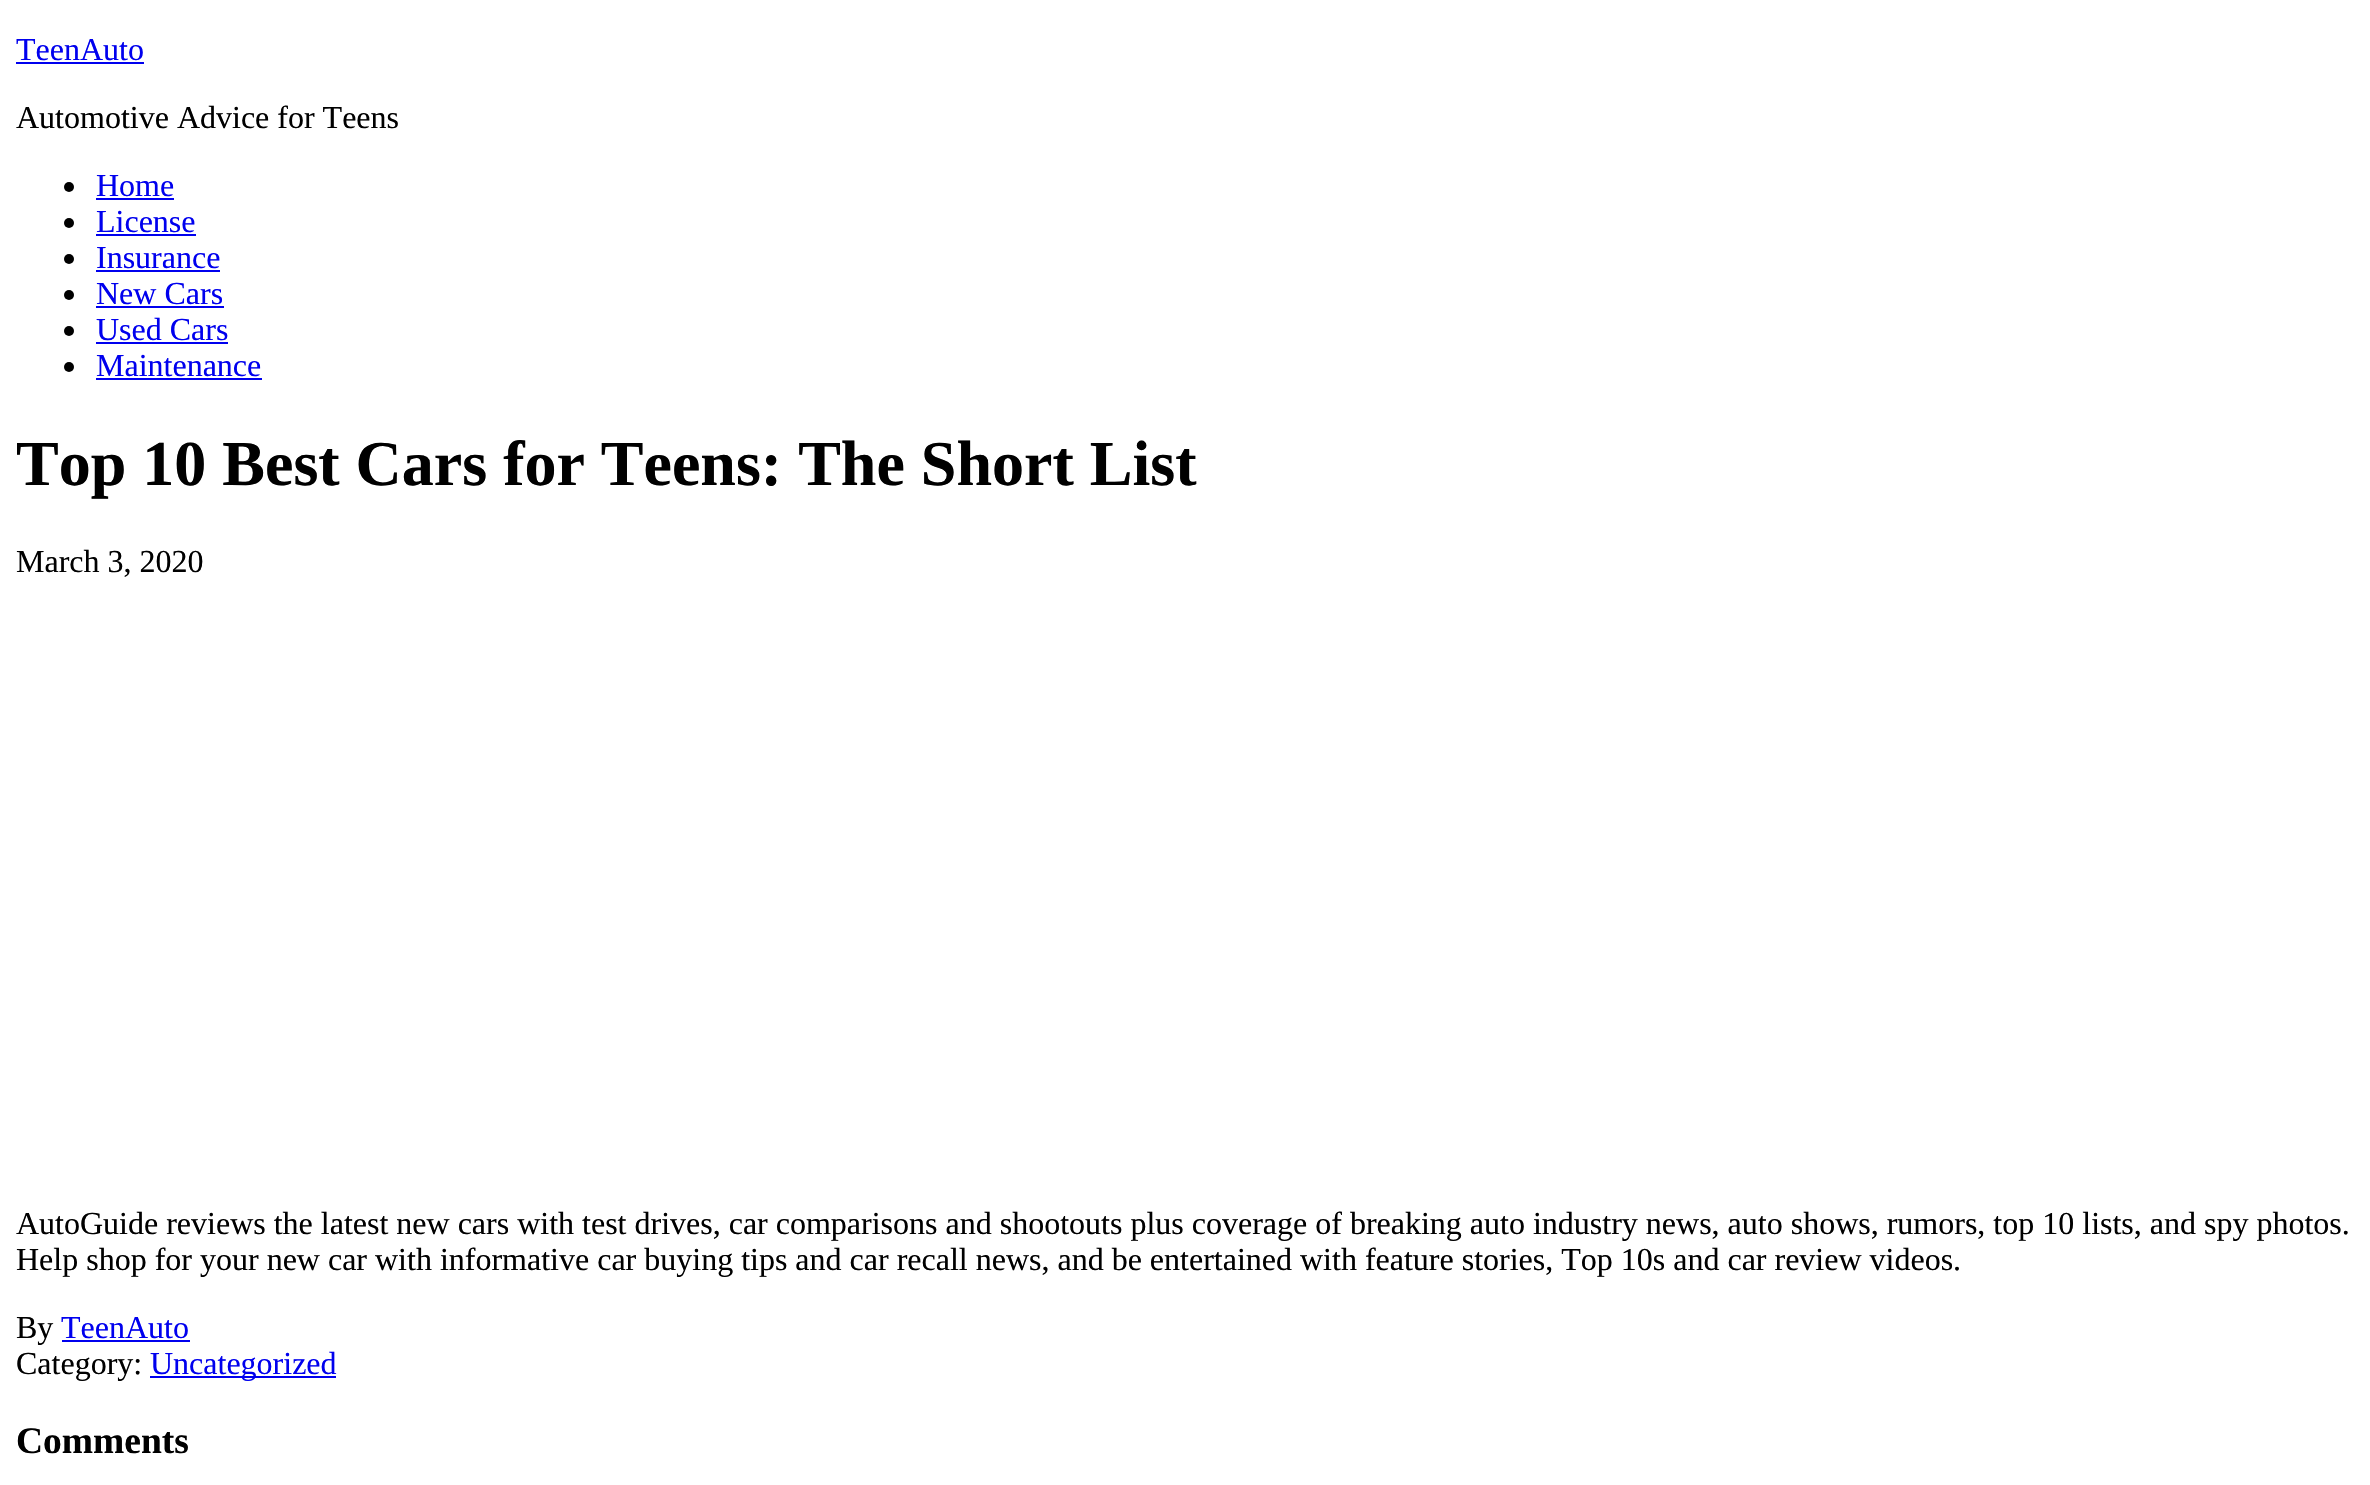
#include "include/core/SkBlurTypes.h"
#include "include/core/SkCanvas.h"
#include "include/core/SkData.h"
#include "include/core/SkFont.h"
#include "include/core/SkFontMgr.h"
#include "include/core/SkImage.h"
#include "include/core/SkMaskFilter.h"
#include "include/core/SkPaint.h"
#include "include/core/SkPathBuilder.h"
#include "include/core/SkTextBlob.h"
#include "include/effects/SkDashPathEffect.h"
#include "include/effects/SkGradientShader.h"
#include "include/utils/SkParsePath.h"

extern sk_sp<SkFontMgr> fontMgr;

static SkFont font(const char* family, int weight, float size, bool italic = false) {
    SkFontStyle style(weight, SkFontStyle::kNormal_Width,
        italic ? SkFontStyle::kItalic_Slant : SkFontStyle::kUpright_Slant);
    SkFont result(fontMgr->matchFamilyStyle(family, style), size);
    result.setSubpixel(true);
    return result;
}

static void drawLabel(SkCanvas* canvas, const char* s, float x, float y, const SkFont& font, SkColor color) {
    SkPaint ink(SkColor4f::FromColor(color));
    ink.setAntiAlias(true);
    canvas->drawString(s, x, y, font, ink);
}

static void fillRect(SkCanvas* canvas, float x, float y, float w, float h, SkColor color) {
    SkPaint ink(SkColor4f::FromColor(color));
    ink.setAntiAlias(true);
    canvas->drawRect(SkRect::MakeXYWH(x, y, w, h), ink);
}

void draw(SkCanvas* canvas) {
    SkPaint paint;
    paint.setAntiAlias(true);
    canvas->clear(0xFFFFFFFF);
    SkFont font1 = font("Liberation Serif", 400, 32);
    drawLabel(canvas, "TeenAuto", 16, 60, font1, 0xFF0000EE);
    fillRect(canvas, 16, 62, 128, 2, 0xFF0000EE);
    drawLabel(canvas, "Automotive Advice for Teens", 16, 128, font1, 0xFF000000);
    paint.setColor(0xFF000000);
    canvas->drawCircle(69, 187, 5, paint);
    drawLabel(canvas, "Home", 96, 196, font1, 0xFF0000EE);
    fillRect(canvas, 96, 198, 78, 2, 0xFF0000EE);
    canvas->drawCircle(69, 223, 5, paint);
    drawLabel(canvas, "License", 96, 232, font1, 0xFF0000EE);
    fillRect(canvas, 96, 234, 100, 2, 0xFF0000EE);
    canvas->drawCircle(69, 259, 5, paint);
    drawLabel(canvas, "Insurance", 96, 268, font1, 0xFF0000EE);
    fillRect(canvas, 96, 270, 124, 2, 0xFF0000EE);
    canvas->drawCircle(69, 295, 5, paint);
    drawLabel(canvas, "New Cars", 96, 304, font1, 0xFF0000EE);
    fillRect(canvas, 96, 306, 128, 2, 0xFF0000EE);
    canvas->drawCircle(69, 331, 5, paint);
    drawLabel(canvas, "Used Cars", 96, 340, font1, 0xFF0000EE);
    fillRect(canvas, 96, 342, 132, 2, 0xFF0000EE);
    canvas->drawCircle(69, 367, 5, paint);
    drawLabel(canvas, "Maintenance", 96, 376, font1, 0xFF0000EE);
    fillRect(canvas, 96, 378, 166, 2, 0xFF0000EE);
    SkFont font2 = font("Liberation Serif", 700, 64);
    drawLabel(canvas, "Top 10 Best Cars for Teens: The Short List", 16, 485, font2, 0xFF000000);
    drawLabel(canvas, "March 3, 2020", 16, 572, font1, 0xFF000000);
    drawLabel(canvas, "AutoGuide reviews the latest new cars with test drives, car comparisons and shootouts plus coverage of breaking auto industry news, auto shows, rumors, top 10 lists, and spy photos.", 16, 1234, font1, 0xFF000000);
    drawLabel(canvas, "Help shop for your new car with informative car buying tips and car recall news, and be entertained with feature stories, Top 10s and car review videos.", 16, 1270, font1, 0xFF000000);
    drawLabel(canvas, "By", 16, 1338, font1, 0xFF000000);
    drawLabel(canvas, "TeenAuto", 61, 1338, font1, 0xFF0000EE);
    fillRect(canvas, 62, 1340, 128, 2, 0xFF0000EE);
    drawLabel(canvas, "Category:", 16, 1374, font1, 0xFF000000);
    fillRect(canvas, 150, 1376, 186, 2, 0xFF0000EE);
    drawLabel(canvas, "Uncategorized", 150, 1374, font1, 0xFF0000EE);
    SkFont font3 = font("Liberation Serif", 700, 37.5f);
    drawLabel(canvas, "Comments", 16, 1453, font3, 0xFF000000);
}
